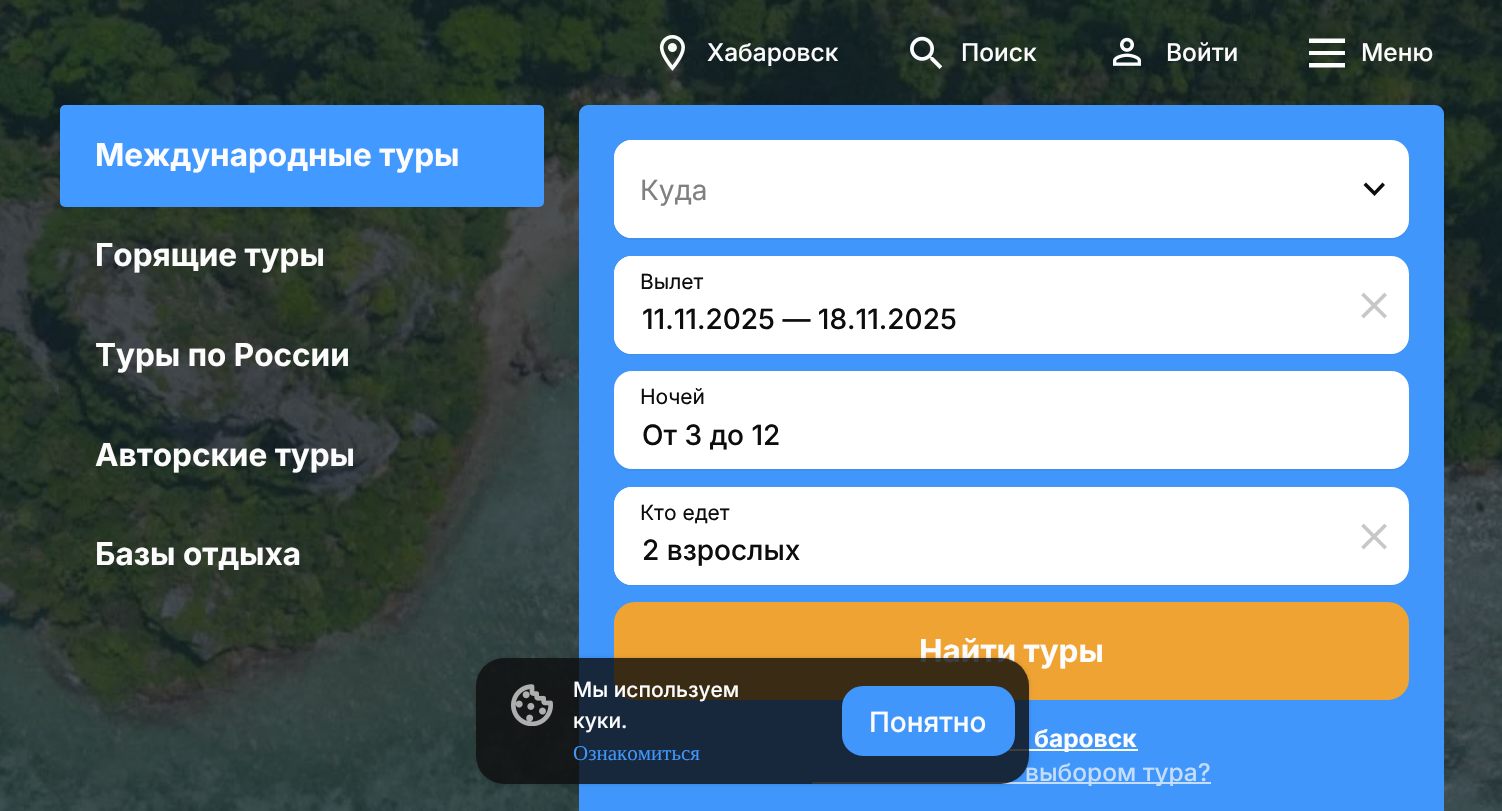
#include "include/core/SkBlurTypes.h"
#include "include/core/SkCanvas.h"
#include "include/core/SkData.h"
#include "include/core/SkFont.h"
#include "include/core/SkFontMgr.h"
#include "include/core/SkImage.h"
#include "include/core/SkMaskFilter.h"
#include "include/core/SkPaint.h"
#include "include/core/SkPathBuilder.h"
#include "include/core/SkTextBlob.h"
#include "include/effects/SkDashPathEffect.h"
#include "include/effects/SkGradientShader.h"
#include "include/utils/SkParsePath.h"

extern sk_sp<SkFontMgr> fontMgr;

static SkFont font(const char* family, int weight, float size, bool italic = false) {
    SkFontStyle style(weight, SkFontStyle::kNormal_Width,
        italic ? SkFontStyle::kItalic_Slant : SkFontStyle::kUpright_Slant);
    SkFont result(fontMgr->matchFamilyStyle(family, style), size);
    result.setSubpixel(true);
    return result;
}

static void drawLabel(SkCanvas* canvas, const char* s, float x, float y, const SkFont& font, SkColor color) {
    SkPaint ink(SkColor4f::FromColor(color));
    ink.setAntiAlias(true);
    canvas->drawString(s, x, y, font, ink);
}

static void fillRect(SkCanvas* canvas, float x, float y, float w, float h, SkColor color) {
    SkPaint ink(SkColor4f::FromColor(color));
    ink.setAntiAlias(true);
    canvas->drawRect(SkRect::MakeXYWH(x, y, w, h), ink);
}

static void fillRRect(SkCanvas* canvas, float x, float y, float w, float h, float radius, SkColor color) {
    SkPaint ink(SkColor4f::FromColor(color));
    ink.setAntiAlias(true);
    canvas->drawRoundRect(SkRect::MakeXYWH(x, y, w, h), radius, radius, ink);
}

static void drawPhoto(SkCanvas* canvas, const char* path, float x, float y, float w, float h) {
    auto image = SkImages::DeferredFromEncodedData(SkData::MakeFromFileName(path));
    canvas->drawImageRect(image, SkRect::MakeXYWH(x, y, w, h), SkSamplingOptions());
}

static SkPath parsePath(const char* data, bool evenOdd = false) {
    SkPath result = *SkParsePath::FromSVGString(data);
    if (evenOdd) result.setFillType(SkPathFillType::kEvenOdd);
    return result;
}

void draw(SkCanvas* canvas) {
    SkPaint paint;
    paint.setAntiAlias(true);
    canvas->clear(0xFFFFFFFF);
    drawPhoto(canvas, "assets/img4.png", 0, 0, 1502, 811);
    drawPhoto(canvas, "assets/img1.png", 659, 35, 26, 36);
    SkFont font1 = font("Inter", 500, 24.5f);
    drawLabel(canvas, "Хабаровск", 707, 61, font1, 0xFFFCFCFC);
    drawPhoto(canvas, "assets/img2.png", 910, 36, 33, 33);
    drawLabel(canvas, "Поиск", 961, 61, font1, 0xFFFCFCFC);
    drawPhoto(canvas, "assets/img3.png", 1113, 37, 28, 29);
    drawLabel(canvas, "Войти", 1166, 61, font1, 0xFFFCFCFC);
    paint.setColor(0xFFFCFCFC);
    canvas->drawPath(parsePath("M1309 67.5H1345V63H1309ZM1309 55H1345V51H1309ZM1309 38.5V43H1345V38.5Z"), paint);
    drawLabel(canvas, "Меню", 1361, 61, font1, 0xFFFCFCFC);
    fillRRect(canvas, 60, 105, 484, 102, 5, 0xFF4299FF);
    SkFont font2 = font("Inter", 700, 31.5f);
    drawLabel(canvas, "Международные туры", 95, 166, font2, 0xFFFCFCFC);
    drawLabel(canvas, "Горящие туры", 95, 266, font2, 0xFFFCFCFC);
    drawLabel(canvas, "Туры по России", 95, 366, font2, 0xFFFCFCFC);
    drawLabel(canvas, "Авторские туры", 95, 466, font2, 0xFFFCFCFC);
    drawLabel(canvas, "Базы отдыха", 95, 565, font2, 0xFFFCFCFC);
    fillRRect(canvas, 579, 105, 865, 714, 9, 0xFF4096FB);
    paint.setColor(0xFF3E90F0);
    canvas->drawPath(parsePath("M614 157V222C614 232 622 240 632 240H1391C1401 240 1409 232 1409 222V157V220C1409 230 1401 238 1391 238H632C622 238 614 230 614 220Z"), paint);
    fillRRect(canvas, 614, 140, 795, 98, 18, 0xFFFFFFFF);
    fillRRect(canvas, 614, 140, 739, 98, 18, 0xFFFFFFFF);
    SkFont font3 = font("Inter", 400, 28);
    drawLabel(canvas, "Куда", 640, 200, font3, 0xFF808080);
    paint.setColor(0xFF0D0D0D);
    canvas->drawPath(parsePath("M1366 182.5L1374.5 191L1382.5 182.5L1385 185L1374.5 196L1363.5 185Z"), paint);
    paint.setColor(0xFF3E90F0);
    canvas->drawPath(parsePath("M614 272V337C614 347 622 355 632 355H1391C1401 355 1409 347 1409 337V272V336C1409 346 1401 354 1391 354H632C622 354 614 346 614 336Z"), paint);
    fillRRect(canvas, 614, 256, 795, 98, 18, 0xFFFFFFFF);
    fillRRect(canvas, 614, 256, 739, 98, 18, 0xFFFFFFFF);
    SkFont font4 = font("Inter", 400, 21);
    drawLabel(canvas, "Вылет", 640, 289, font4, 0xFF0D0D0D);
    SkFont font5 = font("Inter", 500, 28);
    drawLabel(canvas, "11.11.2025 — 18.11.2025", 642, 329, font5, 0xFF0D0D0D);
    drawPhoto(canvas, "assets/img5.png", 1361, 292, 26, 27);
    canvas->drawPath(parsePath("M614 388V453C614 463 622 471 632 471H1391C1401 471 1409 463 1409 453V388V452C1409 461 1401 469 1391 469H632C622 469 614 461 614 452Z"), paint);
    fillRRect(canvas, 614, 371, 795, 98, 18, 0xFFFFFFFF);
    drawLabel(canvas, "Ночей", 640, 404, font4, 0xFF0D0D0D);
    drawLabel(canvas, "От 3 до 12", 642, 445, font5, 0xFF0D0D0D);
    canvas->drawPath(parsePath("M614 503V568C614 578 622 586 632 586H1391C1401 586 1409 578 1409 568V503V567C1409 577 1401 584 1391 584H632C622 584 614 577 614 567Z"), paint);
    fillRRect(canvas, 614, 487, 795, 98, 18, 0xFFFFFFFF);
    fillRRect(canvas, 614, 487, 739, 98, 18, 0xFFFFFFFF);
    drawLabel(canvas, "Кто едет", 640, 520, font4, 0xFF0D0D0D);
    drawLabel(canvas, "2 взрослых", 642, 560, font5, 0xFF0D0D0D);
    drawPhoto(canvas, "assets/img5.png", 1361, 523, 26, 27);
    paint.setColor(0xFFEFA333);
    canvas->drawRoundRect(SkRect::MakeXYWH(615, 603, 793, 96), 20, 20, paint);
    paint.setStroke(true);
    paint.setStrokeWidth(2);
    canvas->drawRoundRect(SkRect::MakeXYWH(615, 603, 793, 96), 20, 20, paint);
    drawLabel(canvas, "Найти туры", 919, 662, font2, 0xFFFCFCFC);
    fillRect(canvas, 1003, 749, 135, 2, 0xFFFCFCFC);
    SkFont font6 = font("Inter", 700, 24.5f);
    drawLabel(canvas, "баровск", 1034, 747, font6, 0xFFFCFCFC);
    fillRect(canvas, 812, 782, 399, 2, 0xFFC4DDFC);
    drawLabel(canvas, "выбором тура?", 1025, 781, font1, 0xFFC4DDFC);
    canvas->save();
    canvas->clipPath(parsePath("M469 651H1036V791H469ZM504 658H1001C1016.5 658 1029 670.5 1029 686V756C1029 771.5 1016.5 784 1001 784H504C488.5 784 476 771.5 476 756V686C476 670.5 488.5 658 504 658Z", true), true);
    paint.setStroke(false);
    paint.setColor(0x26000000);
    paint.setMaskFilter(SkMaskFilter::MakeBlur(kNormal_SkBlurStyle, 2));
    canvas->drawRoundRect(SkRect::MakeXYWH(476, 658, 553, 126), 28, 28, paint);
    paint.setMaskFilter(nullptr);
    canvas->restore();
    fillRRect(canvas, 476, 658, 553, 126, 28, 0xCC0D0D0D);
    drawPhoto(canvas, "assets/img6.png", 511, 684, 42, 42);
    SkFont font7 = font("Inter", 500, 21);
    drawLabel(canvas, "Мы используем", 573, 697, font7, 0xFFFCFCFC);
    drawLabel(canvas, "куки.", 573, 728, font7, 0xFFFCFCFC);
    SkFont font8 = font("Liberation Serif", 400, 21);
    drawLabel(canvas, "Ознакомиться", 573, 760, font8, 0xFF4096FB);
    paint.setColor(0xFF4096FB);
    canvas->drawRoundRect(SkRect::MakeXYWH(843, 687, 171, 68), 20, 20, paint);
    paint.setStroke(true);
    canvas->drawRoundRect(SkRect::MakeXYWH(843, 687, 171, 68), 20, 20, paint);
    drawLabel(canvas, "Понятно", 869, 732, font5, 0xFFFCFCFC);
}
